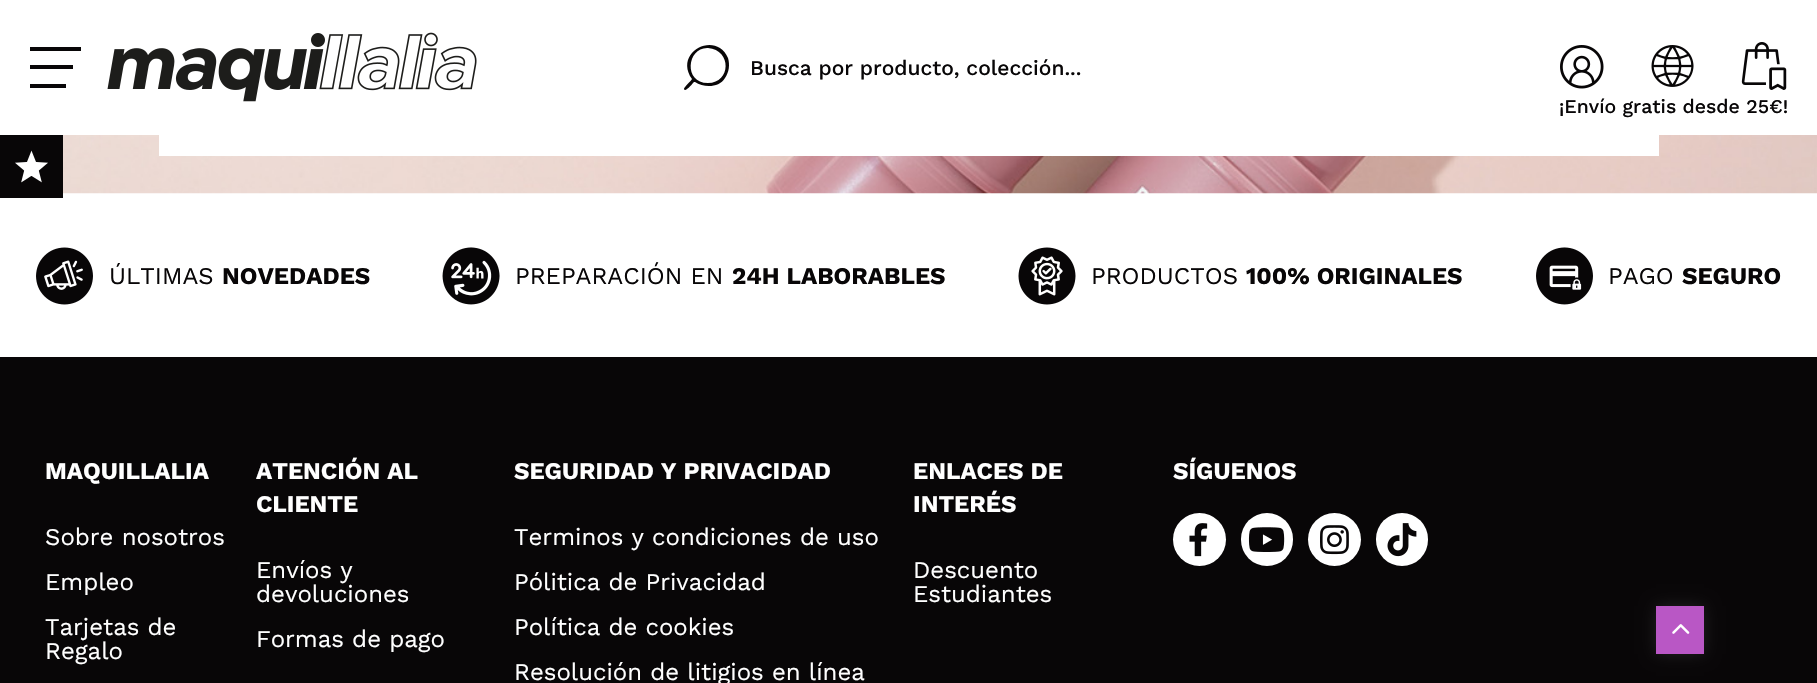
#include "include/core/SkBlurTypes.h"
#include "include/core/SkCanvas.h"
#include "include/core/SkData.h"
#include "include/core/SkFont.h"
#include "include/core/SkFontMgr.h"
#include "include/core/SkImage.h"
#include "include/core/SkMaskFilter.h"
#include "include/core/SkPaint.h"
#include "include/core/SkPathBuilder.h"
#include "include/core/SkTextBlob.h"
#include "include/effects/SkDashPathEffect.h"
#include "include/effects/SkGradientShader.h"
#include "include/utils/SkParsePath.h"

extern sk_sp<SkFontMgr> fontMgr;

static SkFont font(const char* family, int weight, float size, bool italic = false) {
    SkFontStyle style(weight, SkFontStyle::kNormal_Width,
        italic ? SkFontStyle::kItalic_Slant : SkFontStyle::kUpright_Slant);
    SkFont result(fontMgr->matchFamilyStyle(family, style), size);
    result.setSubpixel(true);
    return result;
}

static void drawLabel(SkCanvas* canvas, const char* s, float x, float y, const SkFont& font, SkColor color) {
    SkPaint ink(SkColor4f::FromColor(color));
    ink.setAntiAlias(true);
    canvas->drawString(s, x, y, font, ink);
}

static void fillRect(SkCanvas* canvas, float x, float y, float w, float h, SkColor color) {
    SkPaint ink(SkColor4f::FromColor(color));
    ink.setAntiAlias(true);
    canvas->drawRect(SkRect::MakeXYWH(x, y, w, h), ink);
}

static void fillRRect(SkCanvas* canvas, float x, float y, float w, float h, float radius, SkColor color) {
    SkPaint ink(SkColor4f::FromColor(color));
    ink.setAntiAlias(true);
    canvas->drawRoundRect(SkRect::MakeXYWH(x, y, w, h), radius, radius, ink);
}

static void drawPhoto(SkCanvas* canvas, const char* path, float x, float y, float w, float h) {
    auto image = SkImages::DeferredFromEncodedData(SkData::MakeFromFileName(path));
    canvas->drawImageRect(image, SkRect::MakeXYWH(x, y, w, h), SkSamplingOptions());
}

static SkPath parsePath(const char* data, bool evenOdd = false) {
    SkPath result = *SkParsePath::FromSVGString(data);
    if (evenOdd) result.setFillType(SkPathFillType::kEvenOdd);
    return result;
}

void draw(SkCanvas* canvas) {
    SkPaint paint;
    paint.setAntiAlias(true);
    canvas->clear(0xFFFFFFFF);
    paint.setColor(0xFF080607);
    canvas->drawPath(parsePath("M30 47V51H81V47ZM30 65V69H73V65ZM30 84V88H66V84Z"), paint);
    drawPhoto(canvas, "assets/img1.png", 107, 32, 370, 70);
    canvas->drawPath(parsePath("M694 82C693 83 685 93 684 89C684 87 691 81 692 79C673 52 716 30 728 58C730 65 729 72 725 78C719 88 704 88 695 82ZM708 83C731 83 732 50 708 48C687 47 683 83 708 83Z"), paint);
    SkFont font1 = font("Work Sans", 500, 21);
    drawLabel(canvas, "Busca por producto, colección...", 750, 75, font1, 0xFF080607);
    drawPhoto(canvas, "assets/img2.png", 1560, 45, 44, 44);
    drawPhoto(canvas, "assets/img3.png", 1651, 45, 43, 42);
    drawPhoto(canvas, "assets/img4.png", 1741, 42, 46, 48);
    SkFont font2 = font("Work Sans", 500, 19.5f);
    drawLabel(canvas, "¡Envío gratis desde 25€!", 1559, 113, font2, 0xFF080607);
    fillRect(canvas, 0, 135, 63, 63, 0xFF080607);
    drawPhoto(canvas, "assets/img5.png", 15, 150, 33, 33);
    drawPhoto(canvas, "assets/img6.png", 63, 135, 1754, 59);
    drawPhoto(canvas, "assets/img7.png", 36, 247, 57, 58);
    SkFont font3 = font("Work Sans", 400, 24);
    drawLabel(canvas, "ÚLTIMAS", 109, 284, font3, 0xFF080607);
    SkFont font4 = font("Work Sans", 700, 24);
    drawLabel(canvas, "NOVEDADES", 222, 284, font4, 0xFF080607);
    drawPhoto(canvas, "assets/img8.png", 442, 247, 58, 58);
    drawLabel(canvas, "PREPARACIÓN EN", 515, 284, font3, 0xFF080607);
    drawLabel(canvas, "24H LABORABLES", 732, 284, font4, 0xFF080607);
    drawPhoto(canvas, "assets/img9.png", 1018, 247, 58, 58);
    drawLabel(canvas, "PRODUCTOS", 1091, 284, font3, 0xFF080607);
    drawLabel(canvas, "100% ORIGINALES", 1246, 284, font4, 0xFF080607);
    drawPhoto(canvas, "assets/img10.png", 1536, 247, 57, 58);
    drawLabel(canvas, "PAGO", 1608, 284, font3, 0xFF080607);
    drawLabel(canvas, "SEGURO", 1682, 284, font4, 0xFF080607);
    fillRect(canvas, 0, 357, 1817, 326, 0xFF080607);
    drawLabel(canvas, "MAQUILLALIA", 45, 479, font4, 0xFFFFFFFF);
    drawLabel(canvas, "Sobre nosotros", 45, 545, font3, 0xFFFFFFFF);
    drawLabel(canvas, "Empleo", 45, 590, font3, 0xFFFFFFFF);
    drawLabel(canvas, "Tarjetas de", 45, 635, font3, 0xFFFFFFFF);
    drawLabel(canvas, "Regalo", 45, 659, font3, 0xFFFFFFFF);
    drawLabel(canvas, "ATENCIÓN AL", 256, 479, font4, 0xFFFFFFFF);
    drawLabel(canvas, "CLIENTE", 256, 512, font4, 0xFFFFFFFF);
    drawLabel(canvas, "Envíos y", 256, 578, font3, 0xFFFFFFFF);
    drawLabel(canvas, "devoluciones", 256, 602, font3, 0xFFFFFFFF);
    drawLabel(canvas, "Formas de pago", 256, 647, font3, 0xFFFFFFFF);
    drawLabel(canvas, "SEGURIDAD Y PRIVACIDAD", 514, 479, font4, 0xFFFFFFFF);
    drawLabel(canvas, "Terminos y condiciones de uso", 514, 545, font3, 0xFFFFFFFF);
    drawLabel(canvas, "Pólitica de Privacidad", 514, 590, font3, 0xFFFFFFFF);
    drawLabel(canvas, "Política de cookies", 514, 635, font3, 0xFFFFFFFF);
    drawLabel(canvas, "Resolución de litigios en línea", 514, 680, font3, 0xFFFFFFFF);
    drawLabel(canvas, "ENLACES DE", 913, 479, font4, 0xFFFFFFFF);
    drawLabel(canvas, "INTERÉS", 913, 512, font4, 0xFFFFFFFF);
    drawLabel(canvas, "Descuento", 913, 578, font3, 0xFFFFFFFF);
    drawLabel(canvas, "Estudiantes", 913, 602, font3, 0xFFFFFFFF);
    drawLabel(canvas, "SÍGUENOS", 1173, 479, font4, 0xFFFFFFFF);
    paint.setColor(0xFFFFFFFF);
    canvas->drawCircle(1199.5f, 539.5f, 26.5f, paint);
    drawPhoto(canvas, "assets/img11.png", 1189, 523, 19, 34);
    fillRRect(canvas, 1241, 513, 52, 53, 26, 0xFFFFFFFF);
    drawPhoto(canvas, "assets/img12.png", 1248, 527, 37, 25);
    canvas->drawCircle(1334.5f, 539.5f, 26.5f, paint);
    drawPhoto(canvas, "assets/img13.png", 1320, 525, 29, 30);
    fillRRect(canvas, 1376, 513, 52, 53, 26, 0xFFFFFFFF);
    drawPhoto(canvas, "assets/img14.png", 1387, 523, 30, 34);
    paint.setColor(0x1AFFFFFF);
    paint.setMaskFilter(SkMaskFilter::MakeBlur(kNormal_SkBlurStyle, 7.5f));
    canvas->drawRect(SkRect::MakeXYWH(1656, 606, 48, 48), paint);
    paint.setMaskFilter(nullptr);
    fillRect(canvas, 1656, 606, 48, 48, 0xFFB957C5);
    drawPhoto(canvas, "assets/img15.png", 1672, 624, 18, 10);
}
